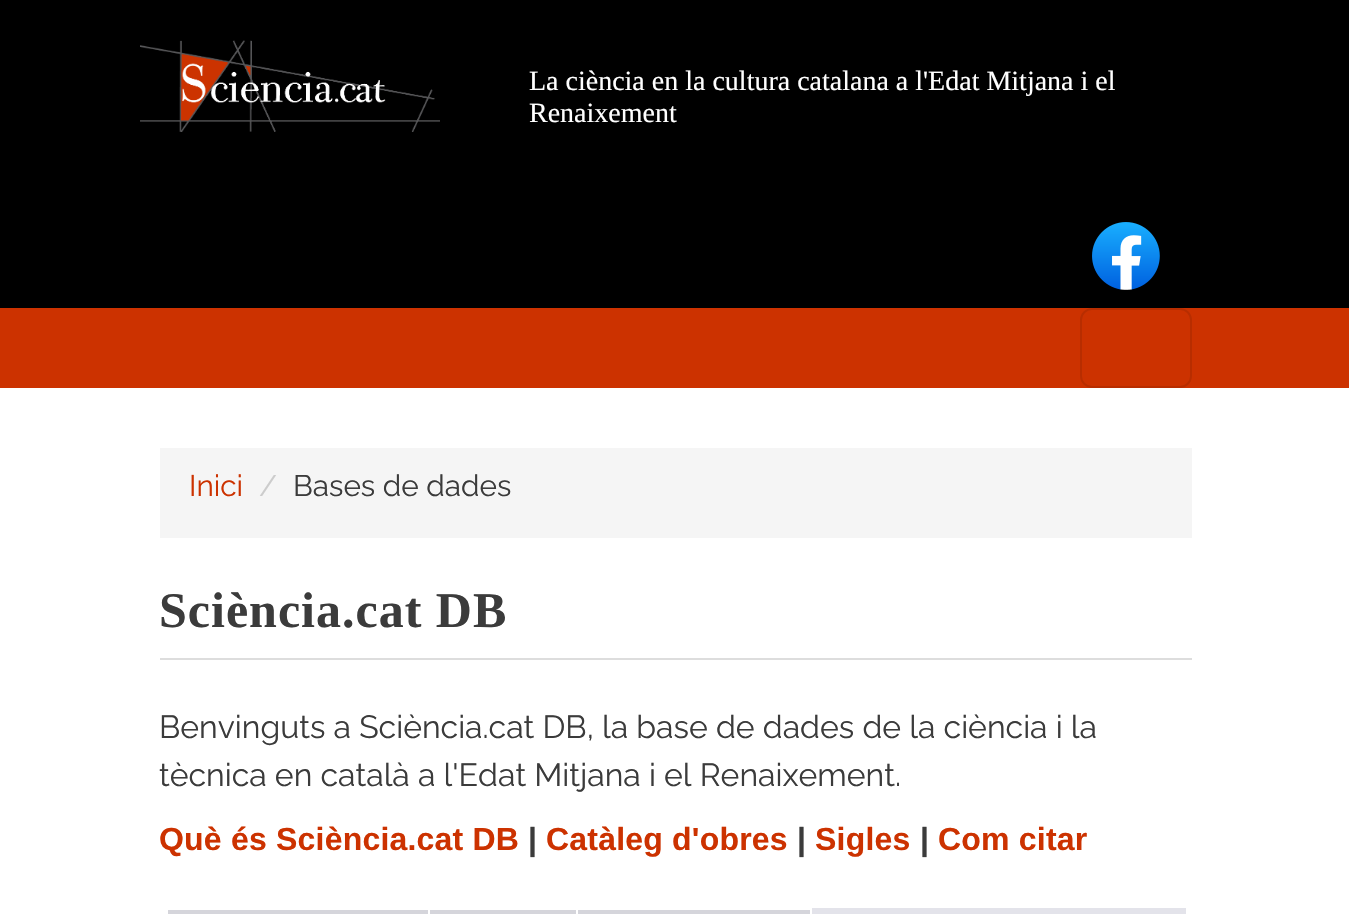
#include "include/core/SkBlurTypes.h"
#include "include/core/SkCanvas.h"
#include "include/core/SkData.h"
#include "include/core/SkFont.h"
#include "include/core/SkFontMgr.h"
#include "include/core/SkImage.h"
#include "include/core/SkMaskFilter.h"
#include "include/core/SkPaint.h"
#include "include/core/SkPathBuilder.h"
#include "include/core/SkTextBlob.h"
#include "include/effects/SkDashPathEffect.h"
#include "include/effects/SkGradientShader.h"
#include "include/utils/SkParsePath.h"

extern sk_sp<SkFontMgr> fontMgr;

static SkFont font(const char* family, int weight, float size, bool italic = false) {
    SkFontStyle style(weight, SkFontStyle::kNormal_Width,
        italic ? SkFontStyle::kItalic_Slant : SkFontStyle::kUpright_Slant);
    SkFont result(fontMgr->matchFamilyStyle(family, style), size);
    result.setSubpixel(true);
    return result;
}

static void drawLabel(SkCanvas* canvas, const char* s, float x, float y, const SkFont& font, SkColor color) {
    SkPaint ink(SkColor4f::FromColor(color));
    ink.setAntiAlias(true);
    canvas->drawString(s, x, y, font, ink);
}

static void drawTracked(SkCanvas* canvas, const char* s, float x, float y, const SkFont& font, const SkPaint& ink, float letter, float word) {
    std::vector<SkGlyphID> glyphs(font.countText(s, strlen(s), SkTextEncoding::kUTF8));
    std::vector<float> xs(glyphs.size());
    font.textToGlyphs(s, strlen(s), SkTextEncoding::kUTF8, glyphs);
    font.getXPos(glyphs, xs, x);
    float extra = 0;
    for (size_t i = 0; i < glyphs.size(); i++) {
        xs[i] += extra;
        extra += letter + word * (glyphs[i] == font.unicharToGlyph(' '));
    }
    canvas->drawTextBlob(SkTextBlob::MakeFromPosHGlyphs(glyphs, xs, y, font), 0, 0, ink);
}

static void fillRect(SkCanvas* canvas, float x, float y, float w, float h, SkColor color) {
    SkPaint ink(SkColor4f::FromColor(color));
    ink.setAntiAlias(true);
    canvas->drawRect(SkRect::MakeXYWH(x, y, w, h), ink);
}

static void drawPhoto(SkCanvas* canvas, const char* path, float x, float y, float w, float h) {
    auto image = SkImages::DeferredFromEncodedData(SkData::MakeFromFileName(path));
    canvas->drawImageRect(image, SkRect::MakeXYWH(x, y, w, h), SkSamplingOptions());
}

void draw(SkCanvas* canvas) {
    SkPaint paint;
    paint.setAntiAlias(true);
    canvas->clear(0xFFFFFFFF);
    fillRect(canvas, 0, 0, 1349, 308, 0xFF000000);
    drawPhoto(canvas, "assets/img1.png", 140, 40, 300, 92);
    SkFont font1 = font("Liberation Serif", 400, 28);
    drawLabel(canvas, "La ciència en la cultura catalana a l'Edat Mitjana i el", 529, 90, font1, 0xFFFFFFFF);
    drawLabel(canvas, "Renaixement", 529, 122, font1, 0xFFFFFFFF);
    drawPhoto(canvas, "assets/img2.png", 1092, 222, 68, 68);
    fillRect(canvas, 0, 308, 1349, 80, 0xFFCC3200);
    paint.setStroke(true);
    paint.setStrokeWidth(2);
    paint.setColor(0xFFB82D00);
    canvas->drawRoundRect(SkRect::MakeXYWH(1081, 309, 110, 78), 11, 11, paint);
    fillRect(canvas, 160, 448, 1032, 90, 0xFFF5F5F5);
    SkFont font2 = font("Raleway", 400, 29.75f);
    drawLabel(canvas, "Inici", 189, 496, font2, 0xFFCC3200);
    drawLabel(canvas, "/", 259, 496, font2, 0xFFCCCCCC);
    drawLabel(canvas, "Bases de dades", 293, 496, font2, 0xFF3B3B3B);
    fillRect(canvas, 160, 658, 1032, 2, 0xFFDDDDDD);
    SkFont font3 = font("Liberation Serif", 700, 50);
    paint.setStroke(false);
    paint.setColor(0xFF3B3B3B);
    drawTracked(canvas, "Sciència.cat DB", 159, 627, font3, paint, 1, 0);
    SkFont font4 = font("Raleway", 400, 32);
    drawLabel(canvas, "Benvinguts a Sciència.cat DB, la base de dades de la ciència i la", 159, 738, font4, 0xFF3B3B3B);
    drawLabel(canvas, "tècnica en català a l'Edat Mitjana i el Renaixement.", 159, 786, font4, 0xFF3B3B3B);
    SkFont font5 = font("Liberation Sans", 700, 32);
    paint.setColor(0xFFCC3200);
    drawTracked(canvas, "Què és Sciència.cat DB", 159, 850, font5, paint, 0.2f, 0);
    paint.setColor(0xFF3B3B3B);
    drawTracked(canvas, "|", 528, 850, font5, paint, 0.2f, 0);
    paint.setColor(0xFFCC3200);
    drawTracked(canvas, "Catàleg d'obres", 546, 850, font5, paint, 0.2f, 0);
    paint.setColor(0xFF3B3B3B);
    drawTracked(canvas, "|", 797, 850, font5, paint, 0.2f, 0);
    paint.setColor(0xFFCC3200);
    drawTracked(canvas, "Sigles", 815, 850, font5, paint, 0.2f, 0);
    paint.setColor(0xFF3B3B3B);
    drawTracked(canvas, "|", 920, 850, font5, paint, 0.2f, 0);
    paint.setColor(0xFFCC3200);
    drawTracked(canvas, "Com citar", 938, 850, font5, paint, 0.2f, 0);
    fillRect(canvas, 812, 908, 374, 6, 0xFFE3E3EA);
    fillRect(canvas, 166, 910, 646, 4, 0xFFD5D5DB);
    fillRect(canvas, 166, 908, 2, 6, 0xFFFFFFFF);
    fillRect(canvas, 428, 908, 2, 6, 0xFFFFFFFF);
    fillRect(canvas, 810, 908, 2, 6, 0xFFFFFFFF);
    fillRect(canvas, 576, 908, 2, 6, 0xFFFFFFFF);
}
